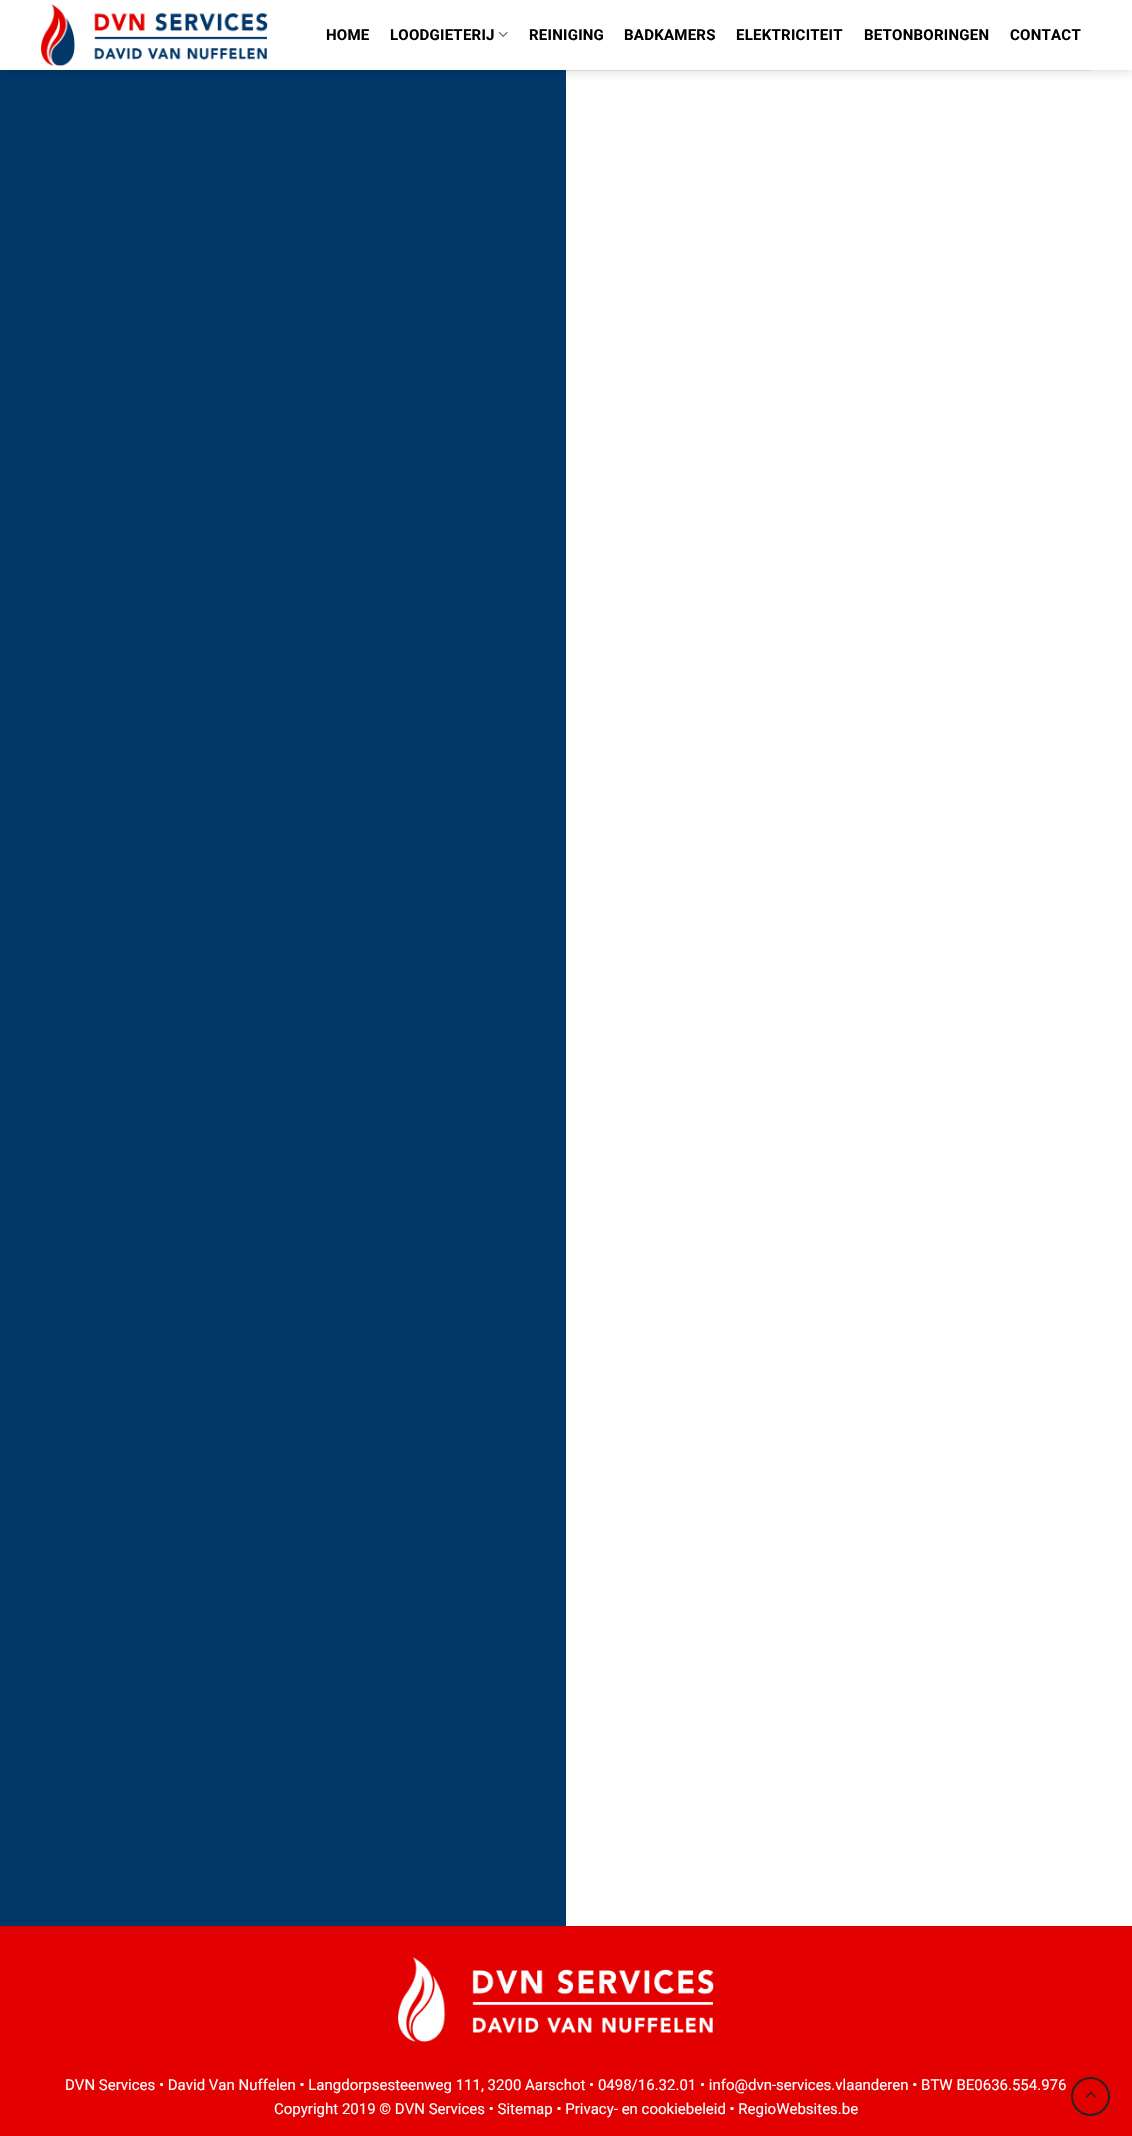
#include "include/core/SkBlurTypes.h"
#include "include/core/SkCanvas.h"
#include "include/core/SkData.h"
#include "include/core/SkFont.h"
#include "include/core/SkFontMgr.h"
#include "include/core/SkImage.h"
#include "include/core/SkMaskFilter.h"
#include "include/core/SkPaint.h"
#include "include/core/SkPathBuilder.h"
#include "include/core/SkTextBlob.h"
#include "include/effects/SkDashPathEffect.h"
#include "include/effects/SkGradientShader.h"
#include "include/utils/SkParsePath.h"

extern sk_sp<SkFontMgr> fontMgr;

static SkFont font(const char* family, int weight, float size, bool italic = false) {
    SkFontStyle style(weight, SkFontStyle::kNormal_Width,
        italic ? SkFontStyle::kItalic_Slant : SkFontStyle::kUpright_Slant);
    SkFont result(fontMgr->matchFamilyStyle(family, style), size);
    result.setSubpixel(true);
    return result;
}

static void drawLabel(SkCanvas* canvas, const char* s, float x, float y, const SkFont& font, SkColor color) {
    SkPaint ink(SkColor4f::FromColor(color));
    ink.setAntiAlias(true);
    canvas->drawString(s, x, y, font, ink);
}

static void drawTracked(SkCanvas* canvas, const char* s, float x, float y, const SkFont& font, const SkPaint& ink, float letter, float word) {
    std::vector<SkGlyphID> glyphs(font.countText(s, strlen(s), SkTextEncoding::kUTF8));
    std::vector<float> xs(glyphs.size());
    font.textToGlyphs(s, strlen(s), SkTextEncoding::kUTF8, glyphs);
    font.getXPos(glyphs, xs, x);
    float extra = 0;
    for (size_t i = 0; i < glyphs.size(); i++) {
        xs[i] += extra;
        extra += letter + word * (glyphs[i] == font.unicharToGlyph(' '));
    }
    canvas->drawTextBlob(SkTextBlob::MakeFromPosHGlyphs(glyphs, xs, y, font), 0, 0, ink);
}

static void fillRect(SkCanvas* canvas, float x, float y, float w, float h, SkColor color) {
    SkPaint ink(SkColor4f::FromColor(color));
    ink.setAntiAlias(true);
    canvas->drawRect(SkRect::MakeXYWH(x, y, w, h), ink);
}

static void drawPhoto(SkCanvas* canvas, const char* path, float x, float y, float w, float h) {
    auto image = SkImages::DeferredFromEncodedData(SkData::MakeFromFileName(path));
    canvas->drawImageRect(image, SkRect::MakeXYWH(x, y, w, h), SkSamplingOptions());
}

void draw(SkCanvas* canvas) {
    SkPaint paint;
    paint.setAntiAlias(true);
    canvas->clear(0xFF01386A);
    fillRect(canvas, 566, 70, 566, 1856, 0xFFFFFFFF);
    paint.setColor(0x26000000);
    paint.setMaskFilter(SkMaskFilter::MakeBlur(kNormal_SkBlurStyle, 5));
    canvas->drawRect(SkRect::MakeXYWH(1, 1, 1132, 70), paint);
    paint.setMaskFilter(nullptr);
    fillRect(canvas, 0, 0, 1132, 70, 0xFFFFFFFF);
    drawPhoto(canvas, "assets/img1.png", 41, 4, 227, 62);
    SkFont font1 = font("Roboto", 700, 15);
    paint.setColor(0xFF000000);
    drawTracked(canvas, "HOME", 326, 40, font1, paint, 0.25f, 0);
    drawTracked(canvas, "LOODGIETERIJ", 390, 40, font1, paint, 0.25f, 0);
    drawPhoto(canvas, "assets/img2.png", 498, 31, 10, 6);
    drawTracked(canvas, "REINIGING", 529, 40, font1, paint, 0.25f, 0);
    drawTracked(canvas, "BADKAMERS", 624, 40, font1, paint, 0.25f, 0);
    drawTracked(canvas, "ELEKTRICITEIT", 736, 40, font1, paint, 0.25f, 0);
    drawTracked(canvas, "BETONBORINGEN", 864, 40, font1, paint, 0.25f, 0);
    drawTracked(canvas, "CONTACT", 1010, 40, font1, paint, 0.25f, 0);
    fillRect(canvas, 41, 70, 1050, 1, 0x1A232323);
    fillRect(canvas, 0, 1927, 1132, 209, 0xFFE20100);
    fillRect(canvas, 0, 1926, 1132, 1, 0xFFD70100);
    drawPhoto(canvas, "assets/img3.png", 398, 1957, 316, 85);
    SkFont font2 = font("Roboto", 400, 15);
    drawLabel(canvas, "DVN Services • David Van Nuffelen • Langdorpsesteenweg 111, 3200 Aarschot • 0498/16.32.01 • info@dvn-services.vlaanderen • BTW BE0636.554.976", 65, 2090, font2, 0xFFFFFFFF);
    drawLabel(canvas, "Copyright 2019 © DVN Services • Sitemap • Privacy- en cookiebeleid • RegioWebsites.be", 274, 2114, font2, 0xFFFFFFFF);
    paint.setStroke(true);
    paint.setStrokeWidth(2);
    paint.setColor(0xFF232323);
    canvas->drawCircle(1090.5f, 2096.5f, 18.5f, paint);
    drawPhoto(canvas, "assets/img4.png", 1085, 2091, 12, 7);
}
